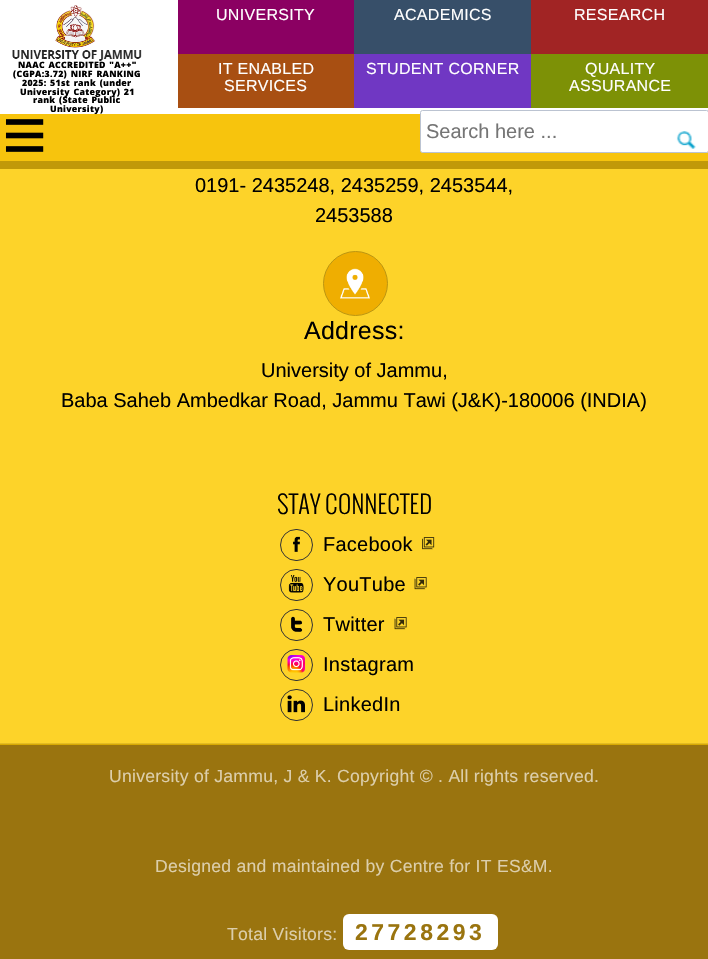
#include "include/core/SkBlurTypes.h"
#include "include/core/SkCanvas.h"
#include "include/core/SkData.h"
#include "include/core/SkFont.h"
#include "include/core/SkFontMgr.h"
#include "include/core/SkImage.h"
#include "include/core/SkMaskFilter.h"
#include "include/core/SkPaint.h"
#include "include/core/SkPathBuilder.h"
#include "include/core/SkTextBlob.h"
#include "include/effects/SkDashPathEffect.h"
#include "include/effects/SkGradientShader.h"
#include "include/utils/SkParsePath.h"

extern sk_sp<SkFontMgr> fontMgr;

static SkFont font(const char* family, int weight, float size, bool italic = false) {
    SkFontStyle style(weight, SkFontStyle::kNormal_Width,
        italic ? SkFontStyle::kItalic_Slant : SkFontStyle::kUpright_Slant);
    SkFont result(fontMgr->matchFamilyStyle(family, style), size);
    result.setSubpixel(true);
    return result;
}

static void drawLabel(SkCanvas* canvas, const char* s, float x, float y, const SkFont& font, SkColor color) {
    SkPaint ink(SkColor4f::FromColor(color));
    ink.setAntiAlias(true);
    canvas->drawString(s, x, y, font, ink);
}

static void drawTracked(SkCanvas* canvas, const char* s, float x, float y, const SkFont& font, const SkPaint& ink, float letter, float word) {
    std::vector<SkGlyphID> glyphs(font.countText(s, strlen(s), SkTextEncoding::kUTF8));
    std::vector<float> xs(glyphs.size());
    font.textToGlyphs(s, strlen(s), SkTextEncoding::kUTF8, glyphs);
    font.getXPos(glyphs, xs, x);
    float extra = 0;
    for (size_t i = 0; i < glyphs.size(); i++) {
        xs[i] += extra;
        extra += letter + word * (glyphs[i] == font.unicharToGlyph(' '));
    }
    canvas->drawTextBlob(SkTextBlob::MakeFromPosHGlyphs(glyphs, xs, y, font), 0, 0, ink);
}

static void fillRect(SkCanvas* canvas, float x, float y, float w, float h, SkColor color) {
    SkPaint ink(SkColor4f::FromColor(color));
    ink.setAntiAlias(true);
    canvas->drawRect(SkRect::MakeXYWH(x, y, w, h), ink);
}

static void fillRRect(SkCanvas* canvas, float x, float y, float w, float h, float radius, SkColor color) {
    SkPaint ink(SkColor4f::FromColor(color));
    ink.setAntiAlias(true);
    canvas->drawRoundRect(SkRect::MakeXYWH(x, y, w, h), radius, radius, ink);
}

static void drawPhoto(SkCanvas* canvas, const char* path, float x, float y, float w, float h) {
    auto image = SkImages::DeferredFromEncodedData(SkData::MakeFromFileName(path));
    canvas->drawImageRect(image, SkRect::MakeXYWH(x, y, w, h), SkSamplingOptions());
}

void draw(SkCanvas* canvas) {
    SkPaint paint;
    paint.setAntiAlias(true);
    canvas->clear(0xFF9A740F);
    fillRect(canvas, 0, 0, 708, 114, 0xFFFFFFFF);
    drawPhoto(canvas, "assets/img1.png", 12, 5, 130, 56);
    SkFont font1 = font("Open Sans", 800, 8.75f);
    paint.setColor(0xFF000000);
    drawTracked(canvas, "NAAC ACCREDITED \"A++\"", 18, 68, font1, paint, 0.3f, 1);
    drawTracked(canvas, "(CGPA:3.72) NIRF RANKING", 13, 77, font1, paint, 0.3f, 1);
    drawTracked(canvas, "2025: 51st rank (under", 22, 86, font1, paint, 0.3f, 1);
    drawTracked(canvas, "University Category) 21", 20, 95, font1, paint, 0.3f, 1);
    drawTracked(canvas, "rank (State Public", 33, 103, font1, paint, 0.3f, 1);
    fillRect(canvas, 0, 114, 708, 47, 0xFFF7C40D);
    drawTracked(canvas, "University)", 50, 112, font1, paint, 0.3f, 0);
    fillRect(canvas, 178, 0, 176, 54, 0xFF8B0062);
    SkFont font2 = font("Liberation Sans", 400, 16);
    paint.setColor(0xFFFFFFFF);
    drawTracked(canvas, "UNIVERSITY", 216, 20, font2, paint, 0.3f, 0);
    fillRect(canvas, 354, 0, 177, 54, 0xFF374F69);
    drawTracked(canvas, "ACADEMICS", 394, 20, font2, paint, 0.3f, 0);
    fillRect(canvas, 531, 0, 177, 54, 0xFFA12424);
    drawTracked(canvas, "RESEARCH", 574, 20, font2, paint, 0.3f, 0);
    fillRect(canvas, 178, 54, 176, 54, 0xFFA84F12);
    drawTracked(canvas, "IT ENABLED", 218, 74, font2, paint, 0.3f, 0);
    drawTracked(canvas, "SERVICES", 224, 91, font2, paint, 0.3f, 0);
    fillRect(canvas, 354, 54, 177, 54, 0xFF7037C3);
    drawTracked(canvas, "STUDENT CORNER", 366, 74, font2, paint, 0.3f, 0);
    fillRect(canvas, 531, 54, 177, 54, 0xFF7D9106);
    drawTracked(canvas, "QUALITY", 585, 74, font2, paint, 0.3f, 0);
    drawTracked(canvas, "ASSURANCE", 569, 91, font2, paint, 0.3f, 0);
    canvas->drawRoundRect(SkRect::MakeXYWH(420.5f, 110.5f, 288, 42), 2, 2, paint);
    paint.setStroke(true);
    paint.setStrokeWidth(1);
    paint.setColor(0xFFBBC3D1);
    canvas->drawRoundRect(SkRect::MakeXYWH(420.5f, 110.5f, 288, 42), 2, 2, paint);
    SkFont font3 = font("Liberation Sans", 400, 20);
    drawLabel(canvas, "Search here ...", 426, 138, font3, 0xFF757575);
    drawPhoto(canvas, "assets/img2.png", 676, 131, 20, 18);
    fillRect(canvas, 0, 161, 708, 8, 0xFFC19909);
    SkFont font4 = font("Liberation Serif", 700, 80);
    paint.setStroke(false);
    paint.setColor(0xFF000000);
    drawTracked(canvas, "≡", 2, 162, font4, paint, 0.3f, 0);
    fillRect(canvas, 0, 169, 708, 575, 0xFFFDD329);
    drawLabel(canvas, "0191- 2435248, 2435259, 2453544,", 195, 192, font3, 0xFF000000);
    drawLabel(canvas, "2453588", 315, 222, font3, 0xFF000000);
    paint.setColor(0xFFEFAE01);
    canvas->drawCircle(355.5f, 283.5f, 32, paint);
    paint.setStroke(true);
    paint.setColor(0xFFBB9510);
    canvas->drawCircle(355.5f, 283.5f, 32, paint);
    drawPhoto(canvas, "assets/img3.png", 340, 268, 30, 31);
    SkFont font5 = font("Liberation Sans", 400, 25);
    paint.setStroke(false);
    paint.setColor(0xFF000000);
    drawTracked(canvas, "Address:", 304, 339, font5, paint, 0.25f, 0);
    drawLabel(canvas, "University of Jammu,", 261, 377, font3, 0xFF000000);
    drawLabel(canvas, "Baba Saheb Ambedkar Road, Jammu Tawi (J&K)-180006 (INDIA)", 61, 407, font3, 0xFF000000);
    SkFont font6 = font("Oswald", 300, 24.25f);
    drawTracked(canvas, "STAY CONNECTED", 277, 514, font6, paint, 0.25f, 0);
    paint.setStroke(true);
    paint.setColor(0xFF333333);
    canvas->drawRoundRect(SkRect::MakeXYWH(280.5f, 529.5f, 32, 31), 15.5f, 15.5f, paint);
    drawPhoto(canvas, "assets/img4.png", 293, 536, 7, 16);
    paint.setStroke(false);
    paint.setColor(0xFF000000);
    drawTracked(canvas, "Facebook", 323, 551, font3, paint, 0.25f, 0);
    drawPhoto(canvas, "assets/img5.png", 422, 537, 13, 13);
    paint.setStroke(true);
    paint.setColor(0xFF333333);
    canvas->drawRoundRect(SkRect::MakeXYWH(280.5f, 569.5f, 32, 31), 15.5f, 15.5f, paint);
    drawPhoto(canvas, "assets/img6.png", 288, 575, 16, 18);
    paint.setStroke(false);
    paint.setColor(0xFF000000);
    drawTracked(canvas, "YouTube", 323, 591, font3, paint, 0.25f, 0);
    drawPhoto(canvas, "assets/img7.png", 414, 577, 13, 13);
    paint.setStroke(true);
    paint.setColor(0xFF333333);
    canvas->drawRoundRect(SkRect::MakeXYWH(280.5f, 609.5f, 32, 31), 15.5f, 15.5f, paint);
    drawPhoto(canvas, "assets/img8.png", 291, 616, 12, 16);
    paint.setStroke(false);
    paint.setColor(0xFF000000);
    drawTracked(canvas, "Twitter", 323, 631, font3, paint, 0.25f, 0);
    drawPhoto(canvas, "assets/img7.png", 394, 617, 13, 13);
    paint.setStroke(true);
    paint.setColor(0xFF333333);
    canvas->drawRoundRect(SkRect::MakeXYWH(280.5f, 649.5f, 32, 31), 15.5f, 15.5f, paint);
    drawPhoto(canvas, "assets/img9.png", 287, 655, 18, 18);
    paint.setStroke(false);
    paint.setColor(0xFF000000);
    drawTracked(canvas, "Instagram", 323, 671, font3, paint, 0.25f, 0);
    paint.setStroke(true);
    paint.setColor(0xFF333333);
    canvas->drawRoundRect(SkRect::MakeXYWH(280.5f, 689.5f, 32, 31), 15.5f, 15.5f, paint);
    drawPhoto(canvas, "assets/img10.png", 287, 695, 18, 18);
    paint.setStroke(false);
    paint.setColor(0xFF000000);
    drawTracked(canvas, "LinkedIn", 323, 711, font3, paint, 0.25f, 0);
    drawPhoto(canvas, "assets/img11.png", 0, 743, 708, 1);
    fillRect(canvas, 0, 744, 708, 1, 0xFFD8A903);
    SkFont font7 = font("Liberation Sans", 400, 17.6f);
    paint.setColor(0xFFDCCEAB);
    drawTracked(canvas, "University of Jammu, J & K. Copyright © . All rights reserved.", 109, 782, font7, paint, 0.25f, 0);
    drawTracked(canvas, "Designed and maintained by Centre for IT ES&M.", 155, 872, font7, paint, 0.25f, 0);
    drawTracked(canvas, "Total Visitors:", 227, 940, font7, paint, 0.25f, 0);
    fillRRect(canvas, 343, 914, 155, 36, 6, 0xFFFFFFFF);
    SkFont font8 = font("Liberation Sans", 700, 23);
    paint.setColor(0xFF9A740F);
    drawTracked(canvas, "27728293", 355, 940, font8, paint, 3.5f, 0);
}
